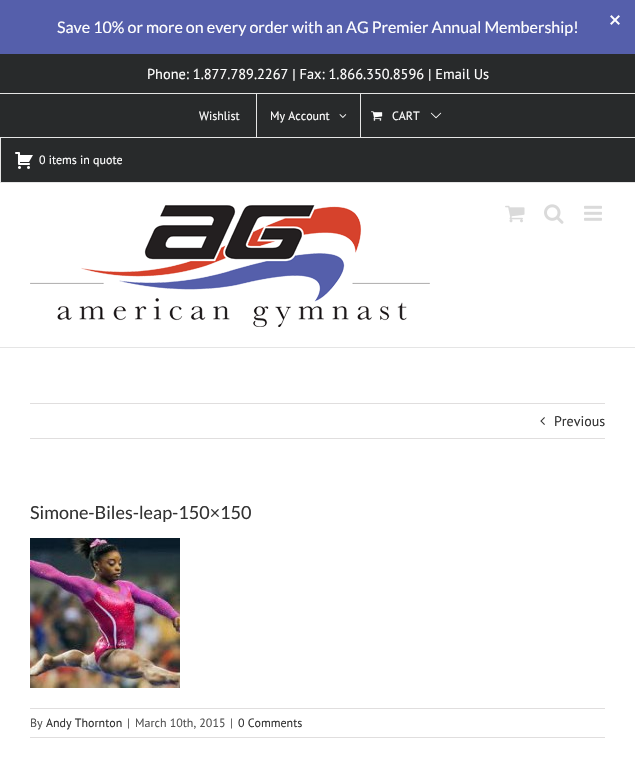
#include "include/core/SkBlurTypes.h"
#include "include/core/SkCanvas.h"
#include "include/core/SkData.h"
#include "include/core/SkFont.h"
#include "include/core/SkFontMgr.h"
#include "include/core/SkImage.h"
#include "include/core/SkMaskFilter.h"
#include "include/core/SkPaint.h"
#include "include/core/SkPathBuilder.h"
#include "include/core/SkTextBlob.h"
#include "include/effects/SkDashPathEffect.h"
#include "include/effects/SkGradientShader.h"
#include "include/utils/SkParsePath.h"

extern sk_sp<SkFontMgr> fontMgr;

static SkFont font(const char* family, int weight, float size, bool italic = false) {
    SkFontStyle style(weight, SkFontStyle::kNormal_Width,
        italic ? SkFontStyle::kItalic_Slant : SkFontStyle::kUpright_Slant);
    SkFont result(fontMgr->matchFamilyStyle(family, style), size);
    result.setSubpixel(true);
    return result;
}

static void drawLabel(SkCanvas* canvas, const char* s, float x, float y, const SkFont& font, SkColor color) {
    SkPaint ink(SkColor4f::FromColor(color));
    ink.setAntiAlias(true);
    canvas->drawString(s, x, y, font, ink);
}

static void fillRect(SkCanvas* canvas, float x, float y, float w, float h, SkColor color) {
    SkPaint ink(SkColor4f::FromColor(color));
    ink.setAntiAlias(true);
    canvas->drawRect(SkRect::MakeXYWH(x, y, w, h), ink);
}

static void drawPhoto(SkCanvas* canvas, const char* path, float x, float y, float w, float h) {
    auto image = SkImages::DeferredFromEncodedData(SkData::MakeFromFileName(path));
    canvas->drawImageRect(image, SkRect::MakeXYWH(x, y, w, h), SkSamplingOptions());
}

void draw(SkCanvas* canvas) {
    SkPaint paint;
    paint.setAntiAlias(true);
    canvas->clear(0xFFFFFFFF);
    fillRect(canvas, 0, 0, 635, 54, 0xFF555FAB);
    drawPhoto(canvas, "assets/img1.png", 610, 15, 10, 10);
    SkFont font1 = font("Lato", 400, 16);
    drawLabel(canvas, "Save 10% or more on every order with an AG Premier Annual Membership!", 57, 33, font1, 0xFFFFFFFF);
    fillRect(canvas, 0, 54, 635, 128, 0xFF282A2B);
    fillRect(canvas, 0, 182, 635, 1, 0xFFE5E5E5);
    fillRect(canvas, 0, 93, 635, 1, 0xFFE5E5E5);
    SkFont font2 = font("PT Sans", 400, 14.4f);
    drawLabel(canvas, "Phone: 1.877.789.2267 | Fax: 1.866.350.8596 | Email Us", 147, 79, font2, 0xFFFFFFFF);
    SkFont font3 = font("PT Sans", 400, 12);
    drawLabel(canvas, "Wishlist", 199, 120, font3, 0xFFFFFFFF);
    fillRect(canvas, 256, 94, 1, 44, 0xFFE5E5E5);
    drawLabel(canvas, "My Account", 270, 120, font3, 0xFFFFFFFF);
    drawPhoto(canvas, "assets/img2.png", 339, 114, 8, 4);
    fillRect(canvas, 360, 94, 1, 44, 0xFFE5E5E5);
    drawPhoto(canvas, "assets/img3.png", 371, 111, 12, 10);
    drawLabel(canvas, "CART", 392, 120, font3, 0xFFFFFFFF);
    drawPhoto(canvas, "assets/img4.png", 430, 112, 12, 7);
    fillRect(canvas, 0, 137, 635, 1, 0xFFE5E5E5);
    fillRect(canvas, 0, 138, 1, 44, 0xFFE5E5E5);
    drawPhoto(canvas, "assets/img5.png", 15, 152, 18, 17);
    drawLabel(canvas, "0 items in quote", 39, 164, font3, 0xFFFFFFFF);
    fillRect(canvas, 0, 347, 635, 1, 0xFFE5E5E5);
    drawPhoto(canvas, "assets/img6.png", 30, 205, 400, 122);
    drawPhoto(canvas, "assets/img7.png", 505, 205, 20, 18);
    drawPhoto(canvas, "assets/img8.png", 544, 204, 20, 20);
    drawPhoto(canvas, "assets/img9.png", 584, 205, 18, 16);
    fillRect(canvas, 30, 403, 575, 1, 0xFFE0DEDE);
    fillRect(canvas, 30, 438, 575, 1, 0xFFE0DEDE);
    drawPhoto(canvas, "assets/img10.png", 540, 417, 5, 8);
    SkFont font4 = font("PT Sans", 400, 14);
    drawLabel(canvas, "Previous", 554, 426, font4, 0xFF333333);
    SkFont font5 = font("Lato", 400, 18);
    drawLabel(canvas, "Simone-Biles-leap-150×150", 30, 519, font5, 0xFF333333);
    drawPhoto(canvas, "assets/img11.png", 30, 538, 150, 150);
    fillRect(canvas, 30, 708, 575, 1, 0xFFE0DEDE);
    fillRect(canvas, 30, 737, 575, 1, 0xFFE0DEDE);
    drawLabel(canvas, "By", 30, 727, font3, 0xFF545454);
    drawLabel(canvas, "Andy Thornton", 46, 727, font3, 0xFF333333);
    drawLabel(canvas, "|", 127, 727, font3, 0xFF545454);
    drawLabel(canvas, "March 10th, 2015", 135, 727, font3, 0xFF545454);
    drawLabel(canvas, "|", 230, 727, font3, 0xFF545454);
    drawLabel(canvas, "0 Comments", 238, 727, font3, 0xFF333333);
}
